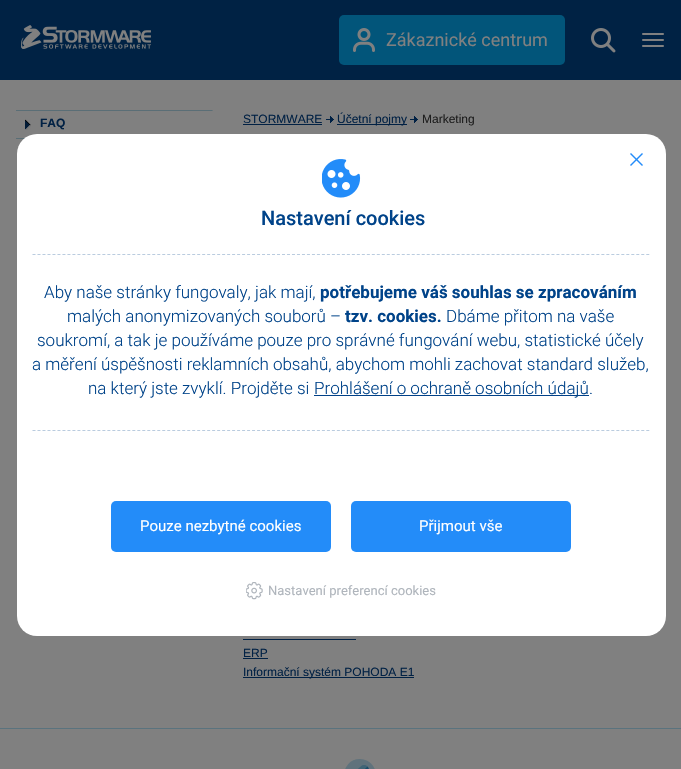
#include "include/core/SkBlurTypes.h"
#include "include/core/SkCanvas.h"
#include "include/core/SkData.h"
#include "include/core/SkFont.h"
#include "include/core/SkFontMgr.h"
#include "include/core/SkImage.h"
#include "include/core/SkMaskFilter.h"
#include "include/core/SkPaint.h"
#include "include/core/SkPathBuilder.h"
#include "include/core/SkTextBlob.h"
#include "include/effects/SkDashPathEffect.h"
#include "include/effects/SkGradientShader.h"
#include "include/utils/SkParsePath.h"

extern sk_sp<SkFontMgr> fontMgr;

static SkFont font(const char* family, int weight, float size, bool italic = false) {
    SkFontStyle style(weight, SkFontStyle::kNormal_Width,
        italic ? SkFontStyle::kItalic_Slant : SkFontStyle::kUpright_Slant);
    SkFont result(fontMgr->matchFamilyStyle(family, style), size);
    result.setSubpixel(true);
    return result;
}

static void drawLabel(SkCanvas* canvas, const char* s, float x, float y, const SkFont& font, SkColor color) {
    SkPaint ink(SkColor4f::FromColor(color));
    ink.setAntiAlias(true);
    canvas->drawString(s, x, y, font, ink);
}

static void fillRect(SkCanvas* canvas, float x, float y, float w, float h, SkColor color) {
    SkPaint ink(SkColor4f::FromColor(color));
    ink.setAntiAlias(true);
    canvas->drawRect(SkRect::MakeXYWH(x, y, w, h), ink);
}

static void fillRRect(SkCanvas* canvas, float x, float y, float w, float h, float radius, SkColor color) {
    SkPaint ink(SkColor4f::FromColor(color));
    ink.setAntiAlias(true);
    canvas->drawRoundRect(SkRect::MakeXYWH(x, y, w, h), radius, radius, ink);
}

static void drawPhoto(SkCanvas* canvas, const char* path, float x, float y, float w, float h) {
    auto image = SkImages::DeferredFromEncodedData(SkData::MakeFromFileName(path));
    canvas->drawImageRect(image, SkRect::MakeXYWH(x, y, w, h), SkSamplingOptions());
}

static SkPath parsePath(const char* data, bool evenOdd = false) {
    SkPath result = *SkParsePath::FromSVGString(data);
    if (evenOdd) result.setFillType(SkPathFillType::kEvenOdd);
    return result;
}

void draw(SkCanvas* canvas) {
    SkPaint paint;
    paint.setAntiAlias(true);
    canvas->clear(0xFF808080);
    fillRect(canvas, 0, 0, 681, 80, 0xFF002244);
    drawPhoto(canvas, "assets/img1.png", 21, 25, 130, 24);
    fillRRect(canvas, 339, 15, 226, 50, 5, 0xFF02557A);
    drawPhoto(canvas, "assets/img2.png", 353, 28, 22, 24);
    SkFont font1 = font("Roboto", 400, 18);
    drawLabel(canvas, "Zákaznické centrum", 386, 46, font1, 0xFF808080);
    drawPhoto(canvas, "assets/img3.png", 591, 28, 25, 25);
    drawPhoto(canvas, "assets/img4.png", 642, 33, 22, 14);
    drawPhoto(canvas, "assets/img5.png", 16, 110, 197, 1);
    drawPhoto(canvas, "assets/img6.png", 16, 138, 9, 1);
    drawPhoto(canvas, "assets/img7.png", 25, 119, 6, 11);
    SkFont font2 = font("Liberation Sans", 700, 12);
    drawLabel(canvas, "FAQ", 40, 127, font2, 0xFF012144);
    SkFont font3 = font("Liberation Sans", 400, 12);
    drawLabel(canvas, "STORMWARE", 243, 123, font3, 0xFF012144);
    fillRect(canvas, 243, 124, 79, 1, 0xFF012144);
    drawPhoto(canvas, "assets/img8.png", 326, 116, 8, 7);
    fillRect(canvas, 337, 124, 70, 1, 0xFF012144);
    drawLabel(canvas, "Účetní pojmy", 337, 123, font3, 0xFF012144);
    drawPhoto(canvas, "assets/img8.png", 410, 116, 8, 7);
    drawLabel(canvas, "Marketing", 422, 123, font3, 0xFF1E1E1E);
    fillRect(canvas, 243, 639, 113, 1, 0xFF012144);
    drawLabel(canvas, "ERP", 243, 657, font3, 0xFF012144);
    fillRect(canvas, 243, 658, 25, 1, 0xFF012144);
    fillRect(canvas, 243, 677, 171, 1, 0xFF012144);
    drawLabel(canvas, "Informační systém POHODA E1", 243, 676, font3, 0xFF012144);
    fillRRect(canvas, 17, 134, 649, 502, 20, 0xFFFFFFFF);
    paint.setColor(0xFF238CF9);
    canvas->drawPath(parsePath("M631 153L643 165L642 166L630 154Z"), paint);
    canvas->drawPath(parsePath("M630 165L642 153L643 154L631 166Z"), paint);
    drawPhoto(canvas, "assets/img9.png", 322, 159, 39, 39);
    SkFont font4 = font("Roboto", 500, 20);
    drawLabel(canvas, "Nastavení cookies", 261, 225, font4, 0xFF004389);
    paint.setStroke(true);
    paint.setStrokeWidth(1);
    paint.setColor(0xFFBACCDF);
    paint.setPathEffect(SkDashPathEffect::Make({{3, 1.99f}}, 0));
    canvas->drawPath(parsePath("M32.5 254.5H649.5"), paint);
    paint.setPathEffect(nullptr);
    SkFont font5 = font("Roboto", 300, 17);
    drawLabel(canvas, "Aby naše stránky fungovaly, jak mají,", 44, 298, font5, 0xFF004389);
    SkFont font6 = font("Roboto", 700, 17);
    drawLabel(canvas, "potřebujeme váš souhlas se zpracováním", 320, 298, font6, 0xFF004389);
    drawLabel(canvas, "malých anonymizovaných souborů –", 67, 322, font5, 0xFF004389);
    drawLabel(canvas, "tzv. cookies.", 345, 322, font6, 0xFF004389);
    drawLabel(canvas, "Dbáme přitom na vaše", 446, 322, font5, 0xFF004389);
    drawLabel(canvas, "soukromí, a tak je používáme pouze pro správné fungování webu, statistické účely", 37, 346, font5, 0xFF004389);
    drawLabel(canvas, "a měření úspěšnosti reklamních obsahů, abychom mohli zachovat standard služeb,", 32, 370, font5, 0xFF004389);
    drawLabel(canvas, "na který jste zvyklí. Projděte si", 88, 394, font5, 0xFF004389);
    fillRect(canvas, 314, 395, 275, 1, 0xFF014188);
    drawLabel(canvas, "Prohlášení o ochraně osobních údajů", 314, 394, font5, 0xFF004389);
    drawLabel(canvas, ".", 589, 394, font5, 0xFF004389);
    paint.setPathEffect(SkDashPathEffect::Make({{3, 1.99f}}, 0));
    canvas->drawPath(parsePath("M32.5 430.5H649.5"), paint);
    paint.setPathEffect(nullptr);
    fillRRect(canvas, 111, 501, 220, 51, 5, 0xFF238CF9);
    SkFont font7 = font("Roboto", 400, 15);
    drawLabel(canvas, "Pouze nezbytné cookies", 140, 531, font7, 0xFFFFFFFF);
    fillRRect(canvas, 351, 501, 220, 51, 5, 0xFF238CF9);
    drawLabel(canvas, "Přijmout vše", 419, 531, font7, 0xFFFFFFFF);
    drawPhoto(canvas, "assets/img10.png", 246, 582, 17, 18);
    SkFont font8 = font("Roboto", 400, 13);
    drawLabel(canvas, "Nastavení preferencí cookies", 268, 595, font8, 0xFFAFB5BC);
    fillRect(canvas, 0, 728, 681, 1, 0xFF5A737E);
    drawPhoto(canvas, "assets/img11.png", 345, 759, 30, 10);
}
